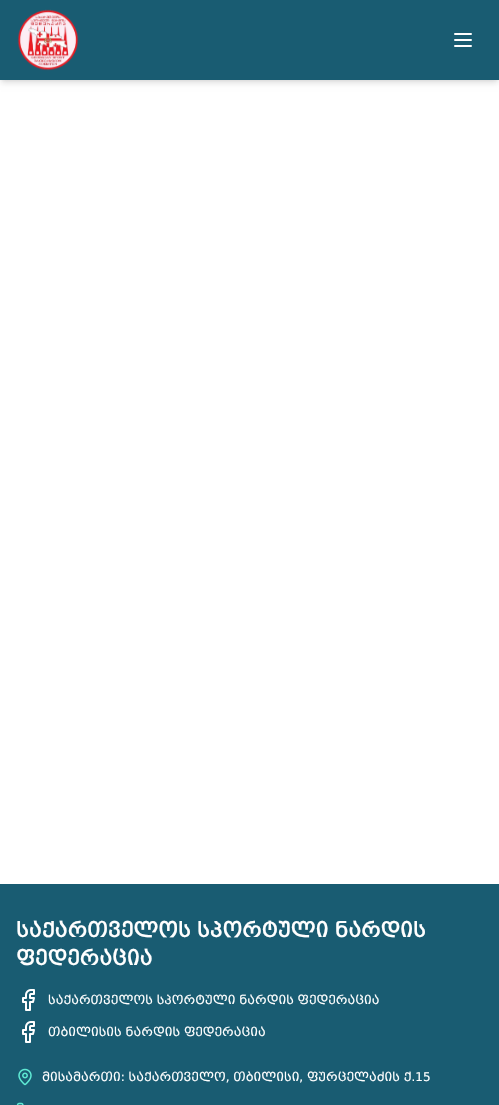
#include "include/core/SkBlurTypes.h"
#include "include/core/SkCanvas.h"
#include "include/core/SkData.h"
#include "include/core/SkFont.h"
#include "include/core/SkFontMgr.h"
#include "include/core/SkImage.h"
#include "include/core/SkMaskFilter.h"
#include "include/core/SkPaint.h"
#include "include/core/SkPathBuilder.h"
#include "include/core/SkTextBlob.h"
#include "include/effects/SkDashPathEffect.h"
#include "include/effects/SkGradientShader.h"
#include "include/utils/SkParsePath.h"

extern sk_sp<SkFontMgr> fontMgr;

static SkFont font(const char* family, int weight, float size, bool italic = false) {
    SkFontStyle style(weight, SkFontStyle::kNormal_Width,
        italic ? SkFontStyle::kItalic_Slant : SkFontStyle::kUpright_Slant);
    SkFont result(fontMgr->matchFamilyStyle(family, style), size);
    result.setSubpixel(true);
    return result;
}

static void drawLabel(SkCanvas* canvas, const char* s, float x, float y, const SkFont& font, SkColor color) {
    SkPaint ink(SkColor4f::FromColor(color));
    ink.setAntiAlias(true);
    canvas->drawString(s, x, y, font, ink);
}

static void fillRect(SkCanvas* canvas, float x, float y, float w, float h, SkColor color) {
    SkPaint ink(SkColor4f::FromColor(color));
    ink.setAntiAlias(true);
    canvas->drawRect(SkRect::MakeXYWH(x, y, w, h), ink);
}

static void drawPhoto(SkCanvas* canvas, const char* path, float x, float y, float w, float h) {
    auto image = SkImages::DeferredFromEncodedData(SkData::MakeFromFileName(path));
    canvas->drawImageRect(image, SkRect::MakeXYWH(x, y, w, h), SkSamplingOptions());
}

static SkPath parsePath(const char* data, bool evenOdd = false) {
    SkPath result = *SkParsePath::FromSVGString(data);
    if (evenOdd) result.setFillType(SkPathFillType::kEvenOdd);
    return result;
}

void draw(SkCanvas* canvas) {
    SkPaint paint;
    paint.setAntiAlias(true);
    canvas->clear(0xFFFFFFFF);
    paint.setColor(0x1A000000);
    paint.setMaskFilter(SkMaskFilter::MakeBlur(kNormal_SkBlurStyle, 2));
    canvas->drawRect(SkRect::MakeXYWH(2, 4, 495, 76), paint);
    paint.setMaskFilter(nullptr);
    paint.setMaskFilter(SkMaskFilter::MakeBlur(kNormal_SkBlurStyle, 3));
    canvas->drawRect(SkRect::MakeXYWH(1, 5, 497, 78), paint);
    paint.setMaskFilter(nullptr);
    fillRect(canvas, 0, 0, 499, 80, 0xFF195C72);
    drawPhoto(canvas, "assets/img1.png", 17, 9, 62, 62);
    paint.setStroke(true);
    paint.setStrokeWidth(2);
    paint.setStrokeCap(SkPaint::kRound_Cap);
    paint.setStrokeJoin(SkPaint::kRound_Join);
    paint.setColor(0xFFFFFFFF);
    canvas->drawPath(parsePath("M455 34H471M455 40H471M455 46H471"), paint);
    fillRect(canvas, 0, 884, 499, 221, 0xFF195C72);
    SkFont font1 = font("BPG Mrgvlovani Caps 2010", 700, 20);
    drawLabel(canvas, "საქართველოს სპორტული ნარდის", 16, 937, font1, 0xFFFFFFFF);
    drawLabel(canvas, "ფედერაცია", 16, 965, font1, 0xFFFFFFFF);
    drawPhoto(canvas, "assets/img2.png", 22, 989, 13, 22);
    SkFont font2 = font("BPG Mrgvlovani Caps 2010", 400, 12);
    drawLabel(canvas, "საქართველოს სპორტული ნარდის ფედერაცია", 48, 1004, font2, 0xFFFFFFFF);
    drawPhoto(canvas, "assets/img2.png", 22, 1021, 13, 22);
    drawLabel(canvas, "თბილისის ნარდის ფედერაცია", 48, 1036, font2, 0xFFFFFFFF);
    drawPhoto(canvas, "assets/img3.png", 18, 1068, 14, 18);
    drawLabel(canvas, "მისამართი: საქართველო, თბილისი, ფურცელაძის ქ.15", 42, 1081, font2, 0xFFFFFFFF);
    drawPhoto(canvas, "assets/img4.png", 16, 1102, 8, 3);
}
